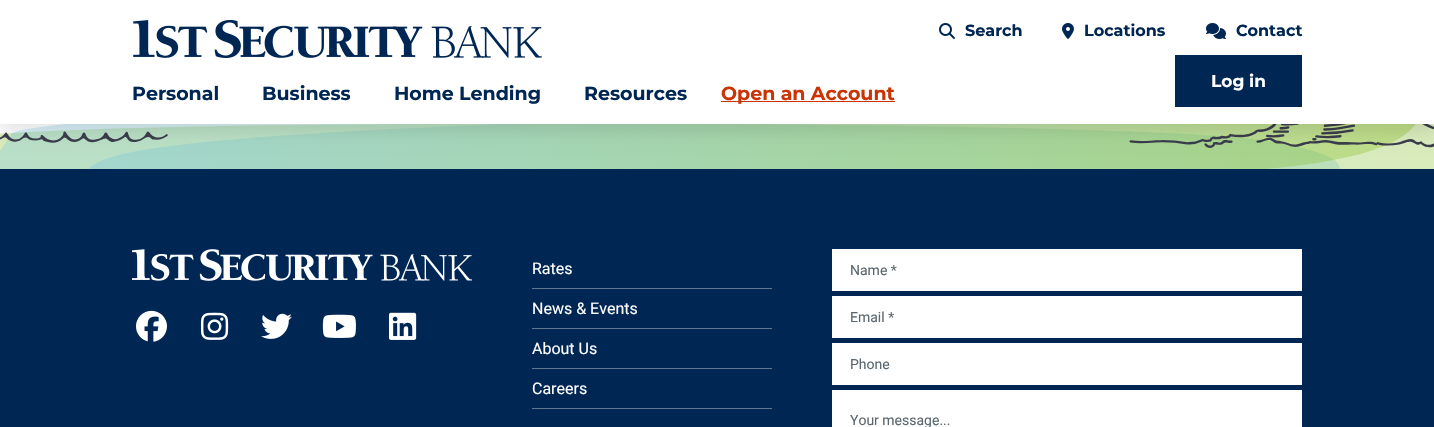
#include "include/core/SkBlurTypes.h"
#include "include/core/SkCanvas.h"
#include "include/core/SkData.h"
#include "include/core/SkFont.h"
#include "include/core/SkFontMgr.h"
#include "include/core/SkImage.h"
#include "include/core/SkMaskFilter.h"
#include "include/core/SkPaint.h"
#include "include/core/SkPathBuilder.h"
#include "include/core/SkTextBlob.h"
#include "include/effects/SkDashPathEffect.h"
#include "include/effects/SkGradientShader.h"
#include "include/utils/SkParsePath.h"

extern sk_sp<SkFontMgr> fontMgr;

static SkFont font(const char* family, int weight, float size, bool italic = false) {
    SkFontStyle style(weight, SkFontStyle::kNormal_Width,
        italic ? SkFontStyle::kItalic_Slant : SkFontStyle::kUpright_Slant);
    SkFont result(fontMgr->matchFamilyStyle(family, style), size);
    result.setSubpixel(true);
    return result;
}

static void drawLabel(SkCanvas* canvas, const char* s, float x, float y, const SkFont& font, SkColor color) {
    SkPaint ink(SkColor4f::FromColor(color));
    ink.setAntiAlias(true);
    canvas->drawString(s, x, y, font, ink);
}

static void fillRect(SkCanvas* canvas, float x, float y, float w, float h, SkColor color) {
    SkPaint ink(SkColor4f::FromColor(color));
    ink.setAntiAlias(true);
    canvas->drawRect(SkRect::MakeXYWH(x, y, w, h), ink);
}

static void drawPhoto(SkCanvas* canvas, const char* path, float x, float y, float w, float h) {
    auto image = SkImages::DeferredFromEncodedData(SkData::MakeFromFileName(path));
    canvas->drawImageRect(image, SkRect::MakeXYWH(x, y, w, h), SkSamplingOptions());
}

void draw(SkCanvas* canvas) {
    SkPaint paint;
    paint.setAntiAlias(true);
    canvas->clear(0xFFFFFFFF);
    drawPhoto(canvas, "assets/img5.png", 0, 124, 1434, 45);
    paint.setColor(0x1A000000);
    paint.setMaskFilter(SkMaskFilter::MakeBlur(kNormal_SkBlurStyle, 8));
    canvas->drawRect(SkRect::MakeXYWH(0, 8, 1434, 124), paint);
    paint.setMaskFilter(nullptr);
    fillRect(canvas, 0, 0, 1434, 124, 0xFFFFFFFF);
    drawPhoto(canvas, "assets/img1.png", 939, 23, 16, 16);
    SkFont font1 = font("Montserrat", 700, 16);
    drawLabel(canvas, "Search", 965, 36, font1, 0xFF002654);
    drawPhoto(canvas, "assets/img2.png", 1062, 23, 12, 16);
    drawLabel(canvas, "Locations", 1084, 36, font1, 0xFF002654);
    drawPhoto(canvas, "assets/img3.png", 1206, 23, 20, 16);
    drawLabel(canvas, "Contact", 1236, 36, font1, 0xFF002654);
    fillRect(canvas, 1175, 55, 127, 52, 0xFF002654);
    SkFont font2 = font("Montserrat", 700, 17);
    drawLabel(canvas, "Log in", 1211, 87, font2, 0xFFFFFFFF);
    drawPhoto(canvas, "assets/img4.png", 133, 20, 409, 38);
    SkFont font3 = font("Montserrat", 700, 19);
    drawLabel(canvas, "Personal", 132, 100, font3, 0xFF002654);
    drawLabel(canvas, "Business", 262, 100, font3, 0xFF002654);
    drawLabel(canvas, "Home Lending", 394, 100, font3, 0xFF002654);
    drawLabel(canvas, "Resources", 584, 100, font3, 0xFF002654);
    fillRect(canvas, 721, 101, 174, 1, 0xFFCB3305);
    drawLabel(canvas, "Open an Account", 721, 100, font3, 0xFFCB3305);
    fillRect(canvas, 0, 169, 1434, 258, 0xFF002654);
    drawPhoto(canvas, "assets/img6.png", 132, 249, 340, 32);
    drawPhoto(canvas, "assets/img7.png", 136, 310, 31, 32);
    drawPhoto(canvas, "assets/img8.png", 201, 312, 28, 28);
    drawPhoto(canvas, "assets/img9.png", 261, 313, 31, 26);
    drawPhoto(canvas, "assets/img10.png", 322, 314, 34, 24);
    drawPhoto(canvas, "assets/img11.png", 389, 312, 28, 28);
    fillRect(canvas, 532, 288, 240, 1, 0xFF617690);
    SkFont font4 = font("Roboto", 400, 16);
    drawLabel(canvas, "Rates", 532, 274, font4, 0xFFFFFFFF);
    fillRect(canvas, 532, 328, 240, 1, 0xFF617690);
    drawLabel(canvas, "News & Events", 532, 314, font4, 0xFFFFFFFF);
    fillRect(canvas, 532, 368, 240, 1, 0xFF617690);
    drawLabel(canvas, "About Us", 532, 354, font4, 0xFFFFFFFF);
    fillRect(canvas, 532, 408, 240, 1, 0xFF617690);
    drawLabel(canvas, "Careers", 532, 394, font4, 0xFFFFFFFF);
    fillRect(canvas, 832, 249, 470, 42, 0xFFFFFFFF);
    SkFont font5 = font("Roboto", 400, 14);
    drawLabel(canvas, "Name *", 850, 275, font5, 0xFF5B6770);
    fillRect(canvas, 832, 296, 470, 42, 0xFFFFFFFF);
    drawLabel(canvas, "Email *", 850, 322, font5, 0xFF5B6770);
    fillRect(canvas, 832, 343, 470, 42, 0xFFFFFFFF);
    drawLabel(canvas, "Phone", 850, 369, font5, 0xFF5B6770);
    fillRect(canvas, 832, 390, 470, 37, 0xFFFFFFFF);
    drawLabel(canvas, "Your message...", 850, 425, font5, 0xFF5B6770);
}
